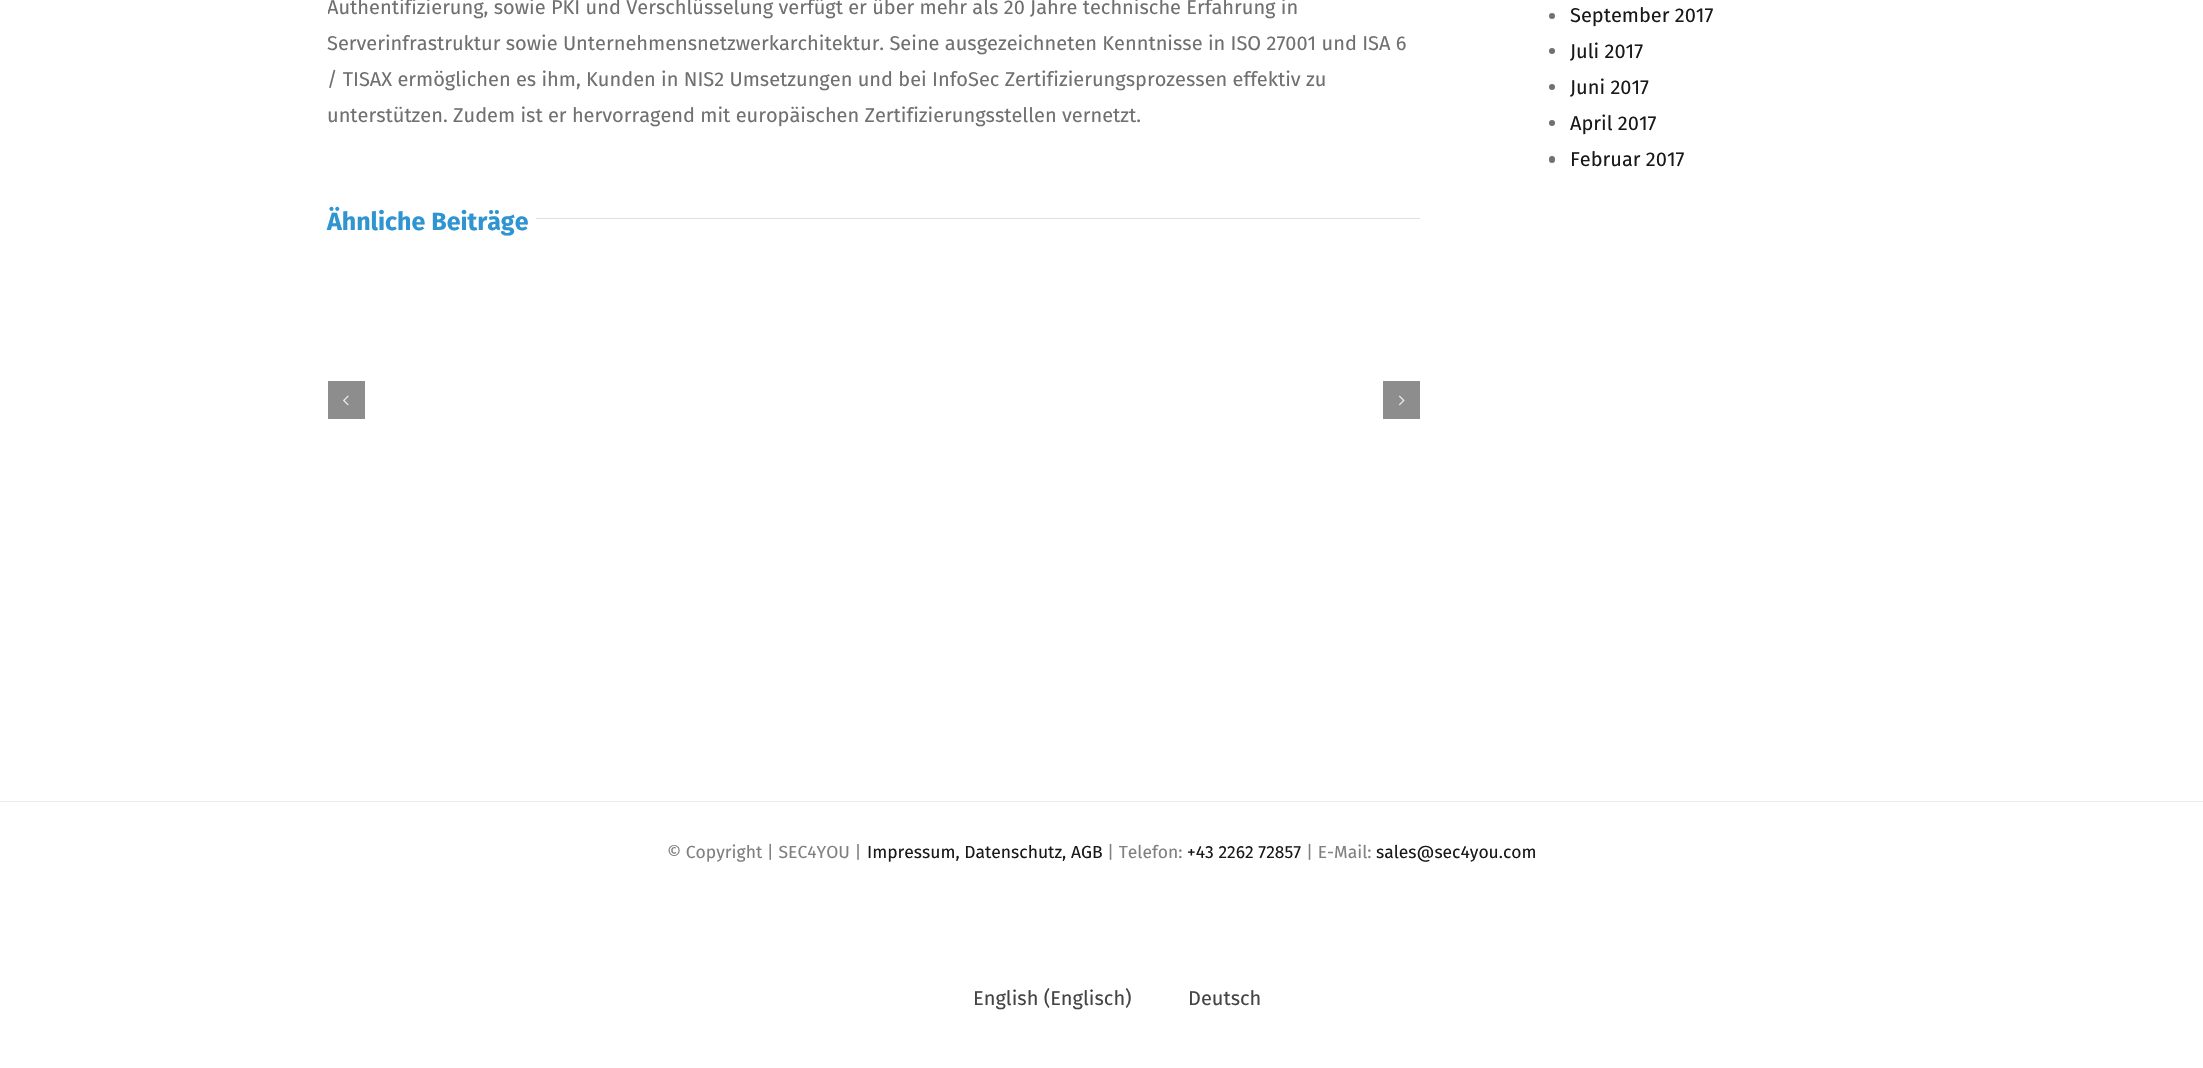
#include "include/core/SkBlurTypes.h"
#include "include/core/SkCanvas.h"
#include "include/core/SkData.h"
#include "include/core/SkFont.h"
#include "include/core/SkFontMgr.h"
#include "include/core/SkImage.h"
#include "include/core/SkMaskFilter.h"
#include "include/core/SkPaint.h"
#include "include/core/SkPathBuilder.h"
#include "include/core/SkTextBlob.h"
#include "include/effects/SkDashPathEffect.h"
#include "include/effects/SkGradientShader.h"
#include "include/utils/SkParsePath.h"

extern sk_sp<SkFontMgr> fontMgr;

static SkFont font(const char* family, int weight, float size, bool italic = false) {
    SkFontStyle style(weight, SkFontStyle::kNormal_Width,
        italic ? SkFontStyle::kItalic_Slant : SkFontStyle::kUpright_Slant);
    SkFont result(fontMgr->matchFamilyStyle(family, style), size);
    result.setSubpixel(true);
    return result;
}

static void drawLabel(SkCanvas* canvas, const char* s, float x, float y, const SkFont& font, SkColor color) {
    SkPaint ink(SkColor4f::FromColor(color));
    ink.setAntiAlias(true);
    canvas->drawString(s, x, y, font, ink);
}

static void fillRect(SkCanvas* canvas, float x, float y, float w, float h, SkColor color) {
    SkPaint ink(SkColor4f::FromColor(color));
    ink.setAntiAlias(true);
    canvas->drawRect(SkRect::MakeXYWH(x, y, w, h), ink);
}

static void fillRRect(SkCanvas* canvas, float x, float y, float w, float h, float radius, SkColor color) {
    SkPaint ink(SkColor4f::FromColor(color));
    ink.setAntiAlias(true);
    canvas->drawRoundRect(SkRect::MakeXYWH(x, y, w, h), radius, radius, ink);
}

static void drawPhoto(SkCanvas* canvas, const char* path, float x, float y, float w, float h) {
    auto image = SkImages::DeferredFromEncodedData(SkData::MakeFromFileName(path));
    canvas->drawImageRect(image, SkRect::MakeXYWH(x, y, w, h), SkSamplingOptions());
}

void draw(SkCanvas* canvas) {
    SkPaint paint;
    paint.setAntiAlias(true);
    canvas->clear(0xFFFFFFFF);
    canvas->save();
    canvas->clipRect(SkRect::MakeXYWH(328, 0, 1092, 134));
    SkFont font1 = font("Fira Sans", 400, 20);
    drawLabel(canvas, "Authentifizierung, sowie PKI und Verschlüsselung verfügt er über mehr als 20 Jahre technische Erfahrung in", 327, 14, font1, 0xFF707070);
    canvas->restore();
    drawLabel(canvas, "Serverinfrastruktur sowie Unternehmensnetzwerkarchitektur. Seine ausgezeichneten Kenntnisse in ISO 27001 und ISA 6", 327, 50, font1, 0xFF707070);
    drawLabel(canvas, "/ TISAX ermöglichen es ihm, Kunden in NIS2 Umsetzungen und bei InfoSec Zertifizierungsprozessen effektiv zu", 327, 86, font1, 0xFF707070);
    drawLabel(canvas, "unterstützen. Zudem ist er hervorragend mit europäischen Zertifizierungsstellen vernetzt.", 327, 122, font1, 0xFF707070);
    SkFont font2 = font("Fira Sans", 700, 25);
    drawLabel(canvas, "Ähnliche Beiträge", 327, 230, font2, 0xFF2E94D2);
    fillRect(canvas, 536, 218, 884, 1, 0xFFE0DEDE);
    fillRect(canvas, 328, 381, 37, 38, 0xFF8D8D8D);
    drawPhoto(canvas, "assets/img1.png", 343, 395, 6, 11);
    fillRect(canvas, 1383, 381, 37, 38, 0xFF8D8D8D);
    drawPhoto(canvas, "assets/img2.png", 1399, 395, 6, 11);
    paint.setColor(0xFF707070);
    canvas->drawCircle(1552, 16, 3, paint);
    drawLabel(canvas, "September 2017", 1570, 22, font1, 0xFF191919);
    canvas->drawCircle(1552, 51, 3, paint);
    drawLabel(canvas, "Juli 2017", 1570, 58, font1, 0xFF191919);
    canvas->drawCircle(1552, 87, 3, paint);
    drawLabel(canvas, "Juni 2017", 1570, 94, font1, 0xFF191919);
    canvas->drawCircle(1552, 123, 3, paint);
    drawLabel(canvas, "April 2017", 1570, 130, font1, 0xFF191919);
    fillRRect(canvas, 1549, 156, 6, 7, 3, 0xFF707070);
    drawLabel(canvas, "Februar 2017", 1570, 166, font1, 0xFF191919);
    fillRect(canvas, 0, 801, 2203, 1, 0xFFEAEAEA);
    SkFont font3 = font("Fira Sans", 400, 17.5f);
    drawLabel(canvas, "© Copyright | SEC4YOU |", 667, 858, font3, 0xFF808080);
    drawLabel(canvas, "Impressum, Datenschutz, AGB", 867, 858, font3, 0xFF191919);
    drawLabel(canvas, "| Telefon:", 1107, 858, font3, 0xFF808080);
    drawLabel(canvas, "+43 2262 72857", 1187, 858, font3, 0xFF191919);
    drawLabel(canvas, "| E-Mail:", 1306, 858, font3, 0xFF808080);
    drawLabel(canvas, "sales@sec4you.com", 1376, 858, font3, 0xFF191919);
    drawLabel(canvas, "English (Englisch)", 973, 1005, font1, 0xFF444444);
    drawLabel(canvas, "Deutsch", 1188, 1005, font1, 0xFF444444);
}
